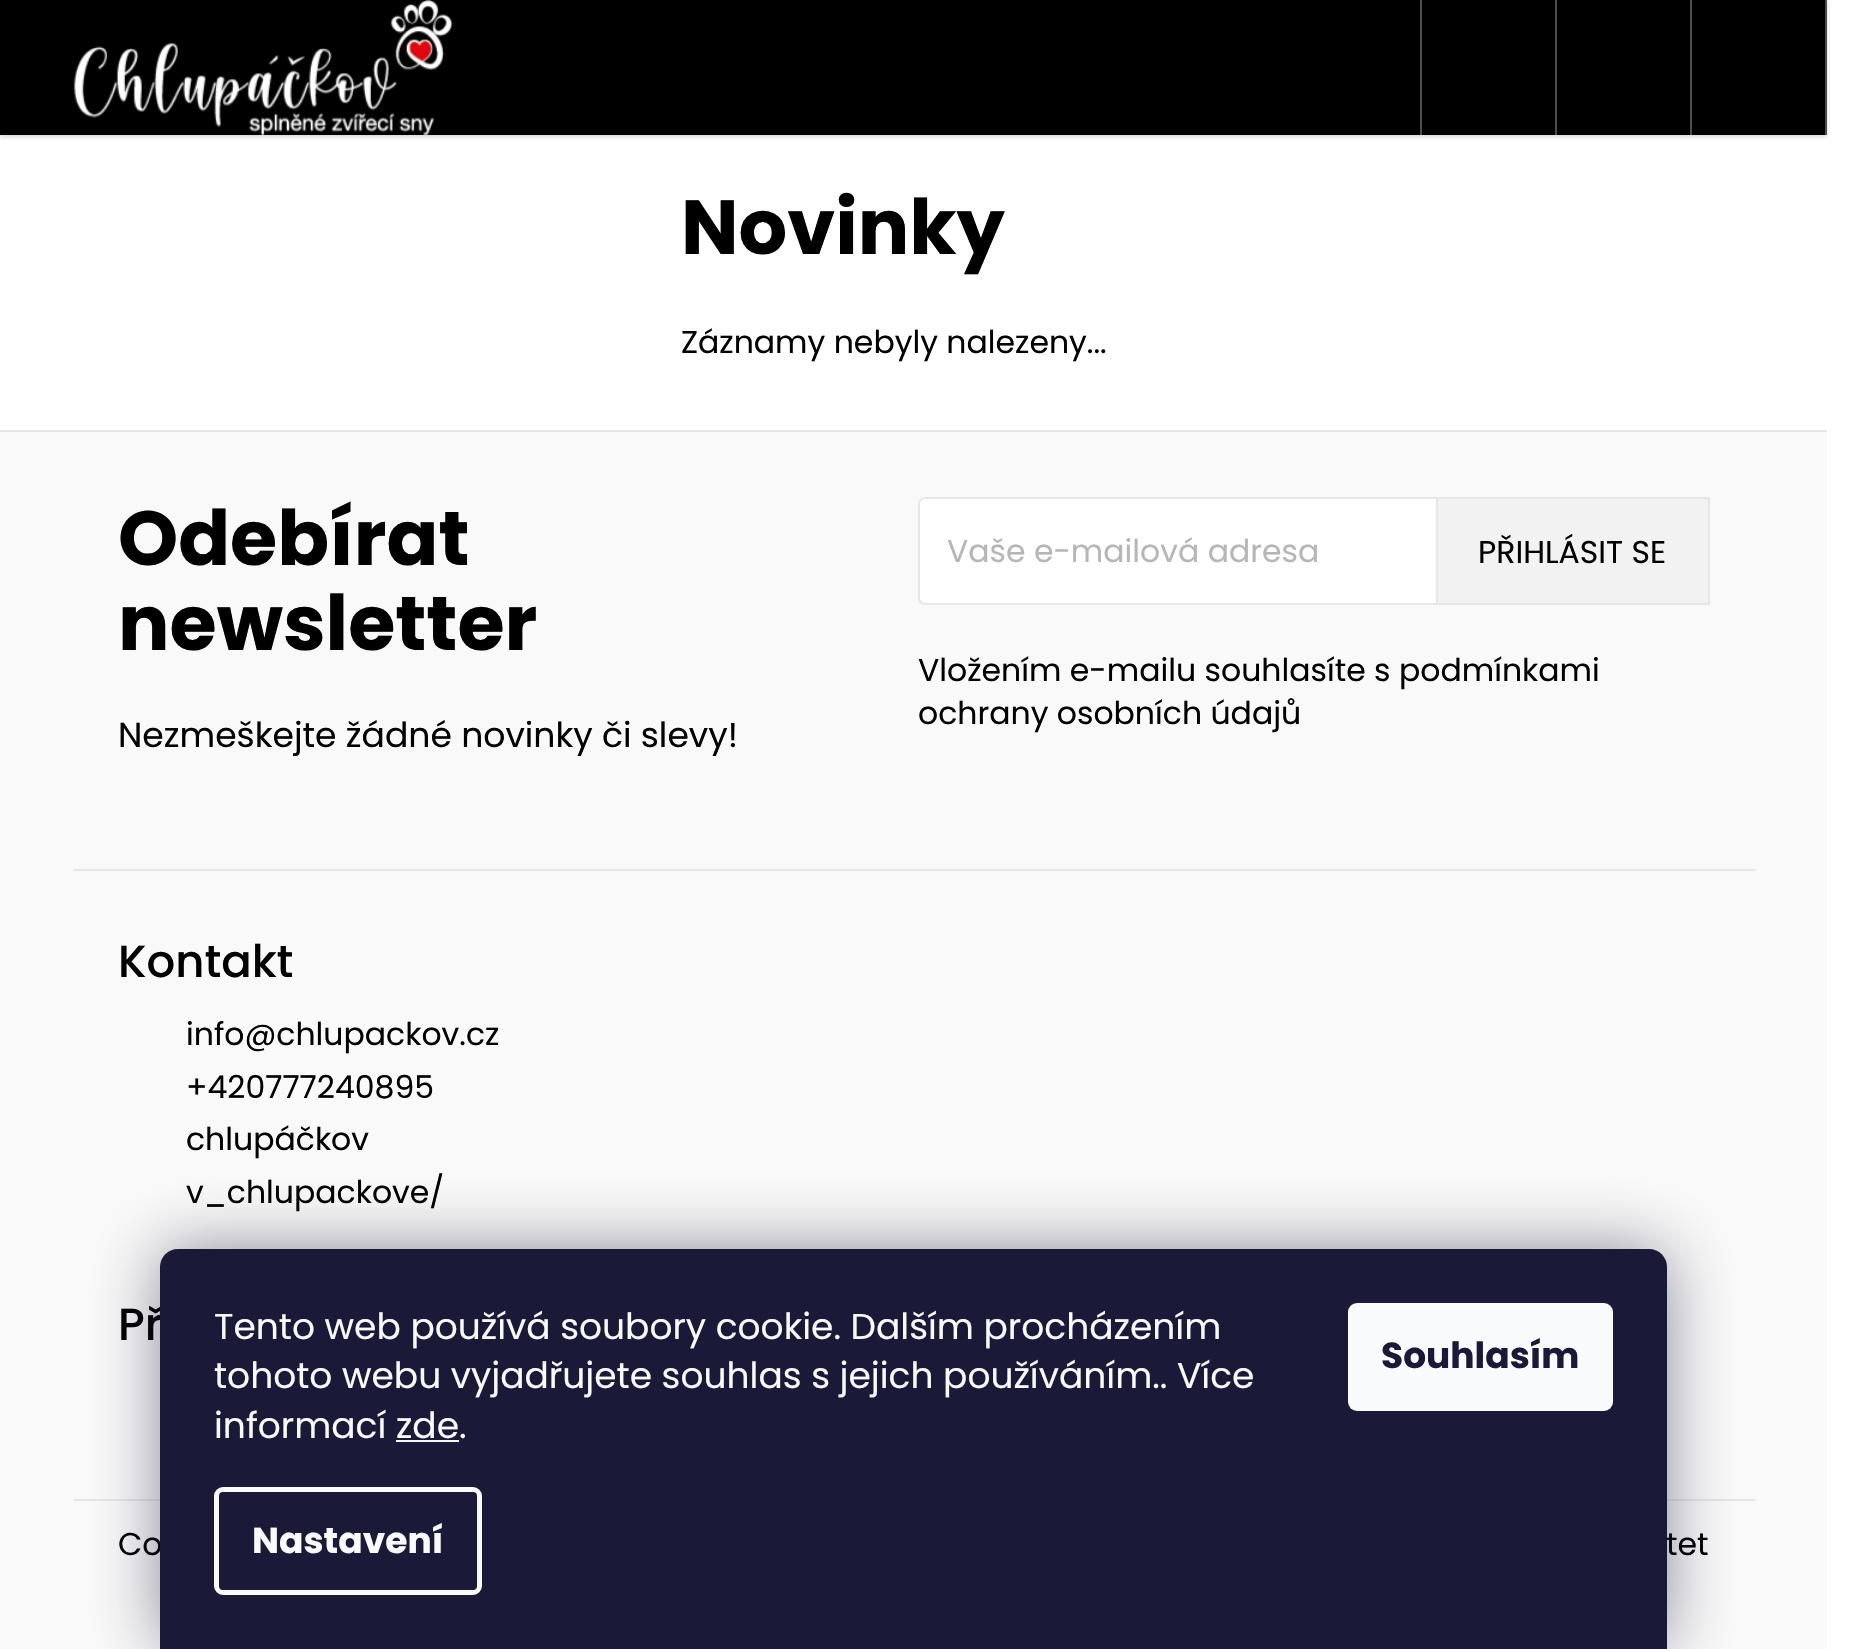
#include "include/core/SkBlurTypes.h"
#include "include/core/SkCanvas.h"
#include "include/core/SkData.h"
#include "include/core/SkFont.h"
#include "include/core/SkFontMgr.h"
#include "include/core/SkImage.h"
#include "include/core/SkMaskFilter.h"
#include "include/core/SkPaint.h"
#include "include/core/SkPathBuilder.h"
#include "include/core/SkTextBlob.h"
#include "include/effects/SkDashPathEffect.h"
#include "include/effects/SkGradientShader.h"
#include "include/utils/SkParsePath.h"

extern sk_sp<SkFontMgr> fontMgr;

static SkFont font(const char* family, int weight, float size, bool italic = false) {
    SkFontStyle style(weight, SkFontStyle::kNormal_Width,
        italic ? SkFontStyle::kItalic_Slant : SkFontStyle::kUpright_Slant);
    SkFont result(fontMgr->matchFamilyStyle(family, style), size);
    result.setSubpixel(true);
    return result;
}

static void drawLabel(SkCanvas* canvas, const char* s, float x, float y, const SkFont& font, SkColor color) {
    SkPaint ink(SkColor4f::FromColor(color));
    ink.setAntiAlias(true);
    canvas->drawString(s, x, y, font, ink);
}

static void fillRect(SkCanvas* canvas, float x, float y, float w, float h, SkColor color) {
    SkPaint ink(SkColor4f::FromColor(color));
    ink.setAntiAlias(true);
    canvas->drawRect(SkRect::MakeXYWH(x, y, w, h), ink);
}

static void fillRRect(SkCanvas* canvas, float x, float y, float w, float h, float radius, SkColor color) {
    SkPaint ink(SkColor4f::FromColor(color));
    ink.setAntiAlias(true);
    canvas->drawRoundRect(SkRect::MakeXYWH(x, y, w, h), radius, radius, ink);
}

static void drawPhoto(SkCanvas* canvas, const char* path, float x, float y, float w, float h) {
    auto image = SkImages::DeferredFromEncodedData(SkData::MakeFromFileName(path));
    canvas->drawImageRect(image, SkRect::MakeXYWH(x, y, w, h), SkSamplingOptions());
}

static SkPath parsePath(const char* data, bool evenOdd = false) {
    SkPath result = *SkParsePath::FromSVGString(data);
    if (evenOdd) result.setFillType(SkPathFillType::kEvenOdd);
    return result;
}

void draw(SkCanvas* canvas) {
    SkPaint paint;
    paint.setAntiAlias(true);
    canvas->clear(0xFFFFFFFF);
    paint.setColor(0x29000000);
    paint.setMaskFilter(SkMaskFilter::MakeBlur(kNormal_SkBlurStyle, 2));
    canvas->drawRect(SkRect::MakeXYWH(0, 2, 1827, 135), paint);
    paint.setMaskFilter(nullptr);
    fillRect(canvas, 0, 0, 1825, 135, 0xFF000000);
    drawPhoto(canvas, "assets/img1.png", 73, 0, 380, 135);
    fillRect(canvas, 1825, 0, 2, 135, 0xFF4D4D4D);
    fillRect(canvas, 1420, 0, 2, 135, 0xFF4D4D4D);
    fillRect(canvas, 1555, 0, 2, 135, 0xFF4D4D4D);
    fillRect(canvas, 1690, 0, 2, 135, 0xFF4D4D4D);
    SkFont font1 = font("Poppins", 700, 76.5f);
    drawLabel(canvas, "Novinky", 681, 254, font1, 0xFF000000);
    SkFont font2 = font("Poppins", 400, 31.5f);
    drawLabel(canvas, "Záznamy nebyly nalezeny...", 681, 353, font2, 0xFF000000);
    fillRect(canvas, 0, 432, 1827, 1217, 0xFFF9F9F9);
    fillRect(canvas, 0, 430, 1827, 2, 0xFFE6E6E6);
    fillRect(canvas, 74, 869, 1681, 2, 0xFFE6E6E6);
    drawLabel(canvas, "Odebírat", 118, 565, font1, 0xFF000000);
    drawLabel(canvas, "newsletter", 118, 650, font1, 0xFF000000);
    SkFont font3 = font("Poppins", 400, 34.6f);
    drawLabel(canvas, "Nezmeškejte žádné novinky či slevy!", 118, 747, font3, 0xFF000000);
    paint.setColor(0xFFFFFFFF);
    canvas->drawRoundRect(SkRect::MakeXYWH(919, 498, 790, 106), 6, 6, paint);
    paint.setStroke(true);
    paint.setStrokeWidth(2);
    paint.setColor(0xFFE6E6E6);
    canvas->drawRoundRect(SkRect::MakeXYWH(919, 498, 790, 106), 6, 6, paint);
    drawLabel(canvas, "Vaše e-mailová adresa", 947, 562, font2, 0xFFB6B6B6);
    paint.setStroke(false);
    paint.setColor(0xFFF2F2F2);
    canvas->drawRect(SkRect::MakeXYWH(1437, 498, 272, 106), paint);
    paint.setStroke(true);
    paint.setColor(0xFFE6E6E6);
    canvas->drawRect(SkRect::MakeXYWH(1437, 498, 272, 106), paint);
    drawLabel(canvas, "PŘIHLÁSIT SE", 1478, 563, font2, 0xFF000000);
    drawLabel(canvas, "Vložením e-mailu souhlasíte s podmínkami", 918, 681, font2, 0xFF000000);
    drawLabel(canvas, "ochrany osobních údajů", 918, 724, font2, 0xFF000000);
    SkFont font4 = font("Poppins", 500, 45);
    drawLabel(canvas, "Kontakt", 118, 977, font4, 0xFF000000);
    drawLabel(canvas, "info@chlupackov.cz", 186, 1045, font2, 0xFF000000);
    drawLabel(canvas, "+420777240895", 186, 1098, font2, 0xFF000000);
    drawLabel(canvas, "chlupáčkov", 186, 1150, font2, 0xFF000000);
    drawLabel(canvas, "v_chlupackove/", 186, 1203, font2, 0xFF000000);
    drawLabel(canvas, "Př", 118, 1340, font4, 0xFF000000);
    fillRect(canvas, 74, 1499, 1681, 2, 0xFFE6E6E6);
    drawLabel(canvas, "Co", 118, 1555, font2, 0xFF000000);
    drawLabel(canvas, "tet", 1666, 1555, font2, 0xFF000000);
    paint.setStroke(false);
    paint.setColor(0x801B1939);
    paint.setMaskFilter(SkMaskFilter::MakeBlur(kNormal_SkBlurStyle, 34));
    canvas->drawRoundRect(SkRect::MakeXYWH(160, 1249, 1507, 400), 18, 18, paint);
    paint.setMaskFilter(nullptr);
    paint.setColor(0xFF1A1937);
    canvas->drawPath(parsePath("M178 1249H1649C1659 1249 1667 1257 1667 1267V1649H160V1267C160 1257 168 1249 178 1249Z"), paint);
    SkFont font5 = font("Poppins", 400, 36);
    drawLabel(canvas, "Tento web používá soubory cookie. Dalším procházením", 214, 1339, font5, 0xFFF8FAFB);
    drawLabel(canvas, "tohoto webu vyjadřujete souhlas s jejich používáním.. Více", 214, 1388, font5, 0xFFF8FAFB);
    drawLabel(canvas, "informací zde.", 214, 1438, font5, 0xFFF8FAFB);
    fillRect(canvas, 396, 1440, 63, 2, 0xFFF8FAFB);
    paint.setStroke(true);
    paint.setStrokeWidth(5);
    paint.setColor(0xFFF8FAFB);
    canvas->drawRoundRect(SkRect::MakeXYWH(216.5f, 1489.5f, 263, 103), 6.5f, 6.5f, paint);
    SkFont font6 = font("Poppins", 700, 36);
    drawLabel(canvas, "Nastavení", 252, 1553, font6, 0xFFF8FAFB);
    fillRRect(canvas, 1348, 1303, 265, 108, 9, 0xFFF8FAFB);
    drawLabel(canvas, "Souhlasím", 1381, 1368, font6, 0xFF1A1937);
}
